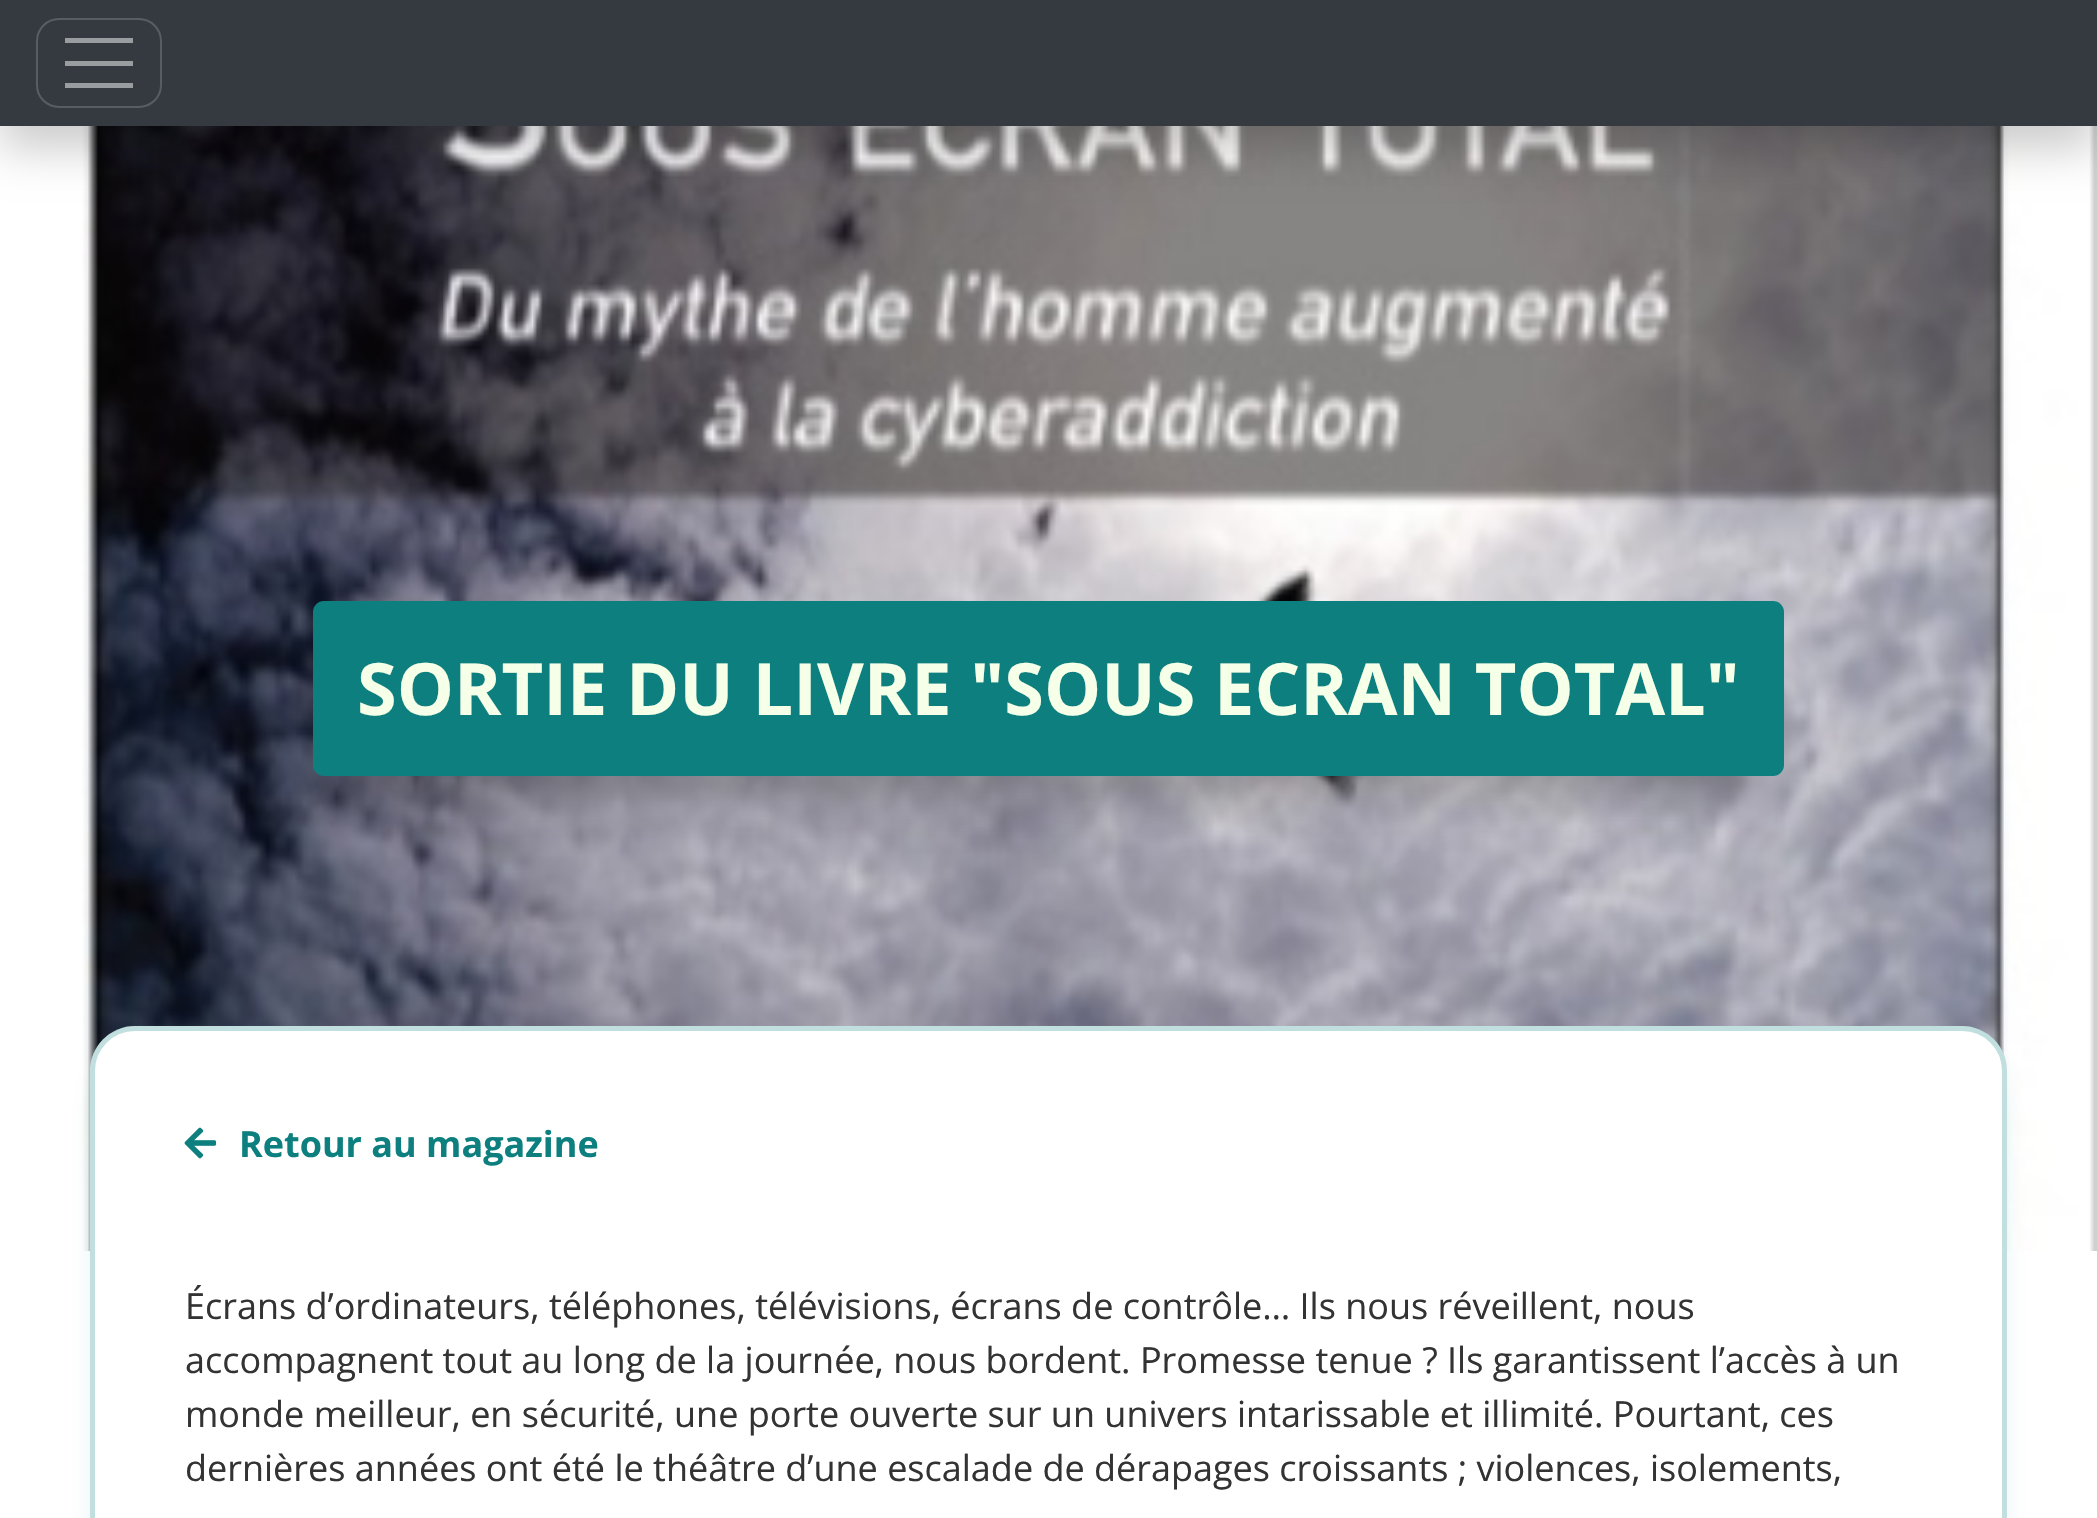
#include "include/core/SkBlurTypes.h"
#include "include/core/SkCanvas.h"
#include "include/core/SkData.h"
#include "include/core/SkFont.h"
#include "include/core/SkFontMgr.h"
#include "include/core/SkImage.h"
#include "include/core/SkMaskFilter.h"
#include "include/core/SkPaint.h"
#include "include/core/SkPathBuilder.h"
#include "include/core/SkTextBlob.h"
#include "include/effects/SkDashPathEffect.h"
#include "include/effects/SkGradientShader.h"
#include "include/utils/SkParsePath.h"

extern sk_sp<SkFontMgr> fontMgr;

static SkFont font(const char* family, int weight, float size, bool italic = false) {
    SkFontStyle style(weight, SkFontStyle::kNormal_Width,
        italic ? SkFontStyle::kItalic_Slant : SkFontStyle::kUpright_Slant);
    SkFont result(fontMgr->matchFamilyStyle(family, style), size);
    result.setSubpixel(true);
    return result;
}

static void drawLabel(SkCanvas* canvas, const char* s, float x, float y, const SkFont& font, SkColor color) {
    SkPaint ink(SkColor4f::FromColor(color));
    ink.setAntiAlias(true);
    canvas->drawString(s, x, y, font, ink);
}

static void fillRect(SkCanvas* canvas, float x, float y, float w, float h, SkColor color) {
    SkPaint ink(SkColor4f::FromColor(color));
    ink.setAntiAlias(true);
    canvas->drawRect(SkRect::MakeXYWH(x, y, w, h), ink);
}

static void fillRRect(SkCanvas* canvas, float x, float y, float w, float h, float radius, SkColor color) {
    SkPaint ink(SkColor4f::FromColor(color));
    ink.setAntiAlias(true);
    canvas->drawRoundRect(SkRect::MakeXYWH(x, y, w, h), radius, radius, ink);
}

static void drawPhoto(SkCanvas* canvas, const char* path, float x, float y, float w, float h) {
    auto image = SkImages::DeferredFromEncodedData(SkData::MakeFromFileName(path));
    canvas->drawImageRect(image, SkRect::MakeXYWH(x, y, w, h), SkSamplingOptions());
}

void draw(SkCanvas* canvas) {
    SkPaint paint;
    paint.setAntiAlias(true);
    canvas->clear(0xFFFFFFFF);
    drawPhoto(canvas, "assets/img1.png", 82, 126, 2015, 1125);
    paint.setColor(0x33000000);
    paint.setMaskFilter(SkMaskFilter::MakeBlur(kNormal_SkBlurStyle, 22.5f));
    canvas->drawRect(SkRect::MakeXYWH(0, 23, 2097, 126), paint);
    paint.setMaskFilter(nullptr);
    fillRect(canvas, 0, 0, 2097, 126, 0xFF343A40);
    paint.setStroke(true);
    paint.setStrokeWidth(2);
    paint.setColor(0xFF585D62);
    canvas->drawRoundRect(SkRect::MakeXYWH(37, 19, 124, 88), 22, 22, paint);
    fillRect(canvas, 65, 38, 68, 5, 0xFF9A9DA0);
    fillRect(canvas, 65, 61, 68, 5, 0xFF9A9DA0);
    fillRect(canvas, 65, 83, 68, 5, 0xFF9A9DA0);
    paint.setStroke(false);
    paint.setColor(0x40000000);
    paint.setMaskFilter(SkMaskFilter::MakeBlur(kNormal_SkBlurStyle, 22.5f));
    canvas->drawRect(SkRect::MakeXYWH(335, 668, 1427, 131), paint);
    paint.setMaskFilter(nullptr);
    fillRRect(canvas, 313, 601, 1471, 175, 11, 0xFF0D7F7F);
    SkFont font1 = font("Open Sans", 700, 72);
    drawLabel(canvas, "SORTIE DU LIVRE \"SOUS ECRAN TOTAL\"", 357, 715, font1, 0xFFF6FFE7);
    paint.setColor(0x800D7F7F);
    paint.setMaskFilter(SkMaskFilter::MakeBlur(kNormal_SkBlurStyle, 22.5f));
    canvas->drawRoundRect(SkRect::MakeXYWH(119, 1078, 1859, 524), 16, 16, paint);
    paint.setMaskFilter(nullptr);
    fillRRect(canvas, 90, 1026, 1917, 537, 45, 0xFFFFFFFF);
    paint.setStroke(true);
    paint.setStrokeWidth(5);
    paint.setColor(0x400D7F7F);
    canvas->drawRoundRect(SkRect::MakeXYWH(92.5f, 1028.5f, 1912, 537), 42.5f, 42.5f, paint);
    drawPhoto(canvas, "assets/img2.png", 184, 1127, 33, 32);
    SkFont font2 = font("Open Sans", 700, 36);
    drawLabel(canvas, "Retour au magazine", 239, 1157, font2, 0xFF0D7F7F);
    SkFont font3 = font("Open Sans", 400, 36);
    drawLabel(canvas, "Écrans d’ordinateurs, téléphones, télévisions, écrans de contrôle… Ils nous réveillent, nous", 185, 1319, font3, 0xFF333333);
    drawLabel(canvas, "accompagnent tout au long de la journée, nous bordent. Promesse tenue ? Ils garantissent l’accès à un", 185, 1373, font3, 0xFF333333);
    drawLabel(canvas, "monde meilleur, en sécurité, une porte ouverte sur un univers intarissable et illimité. Pourtant, ces", 185, 1427, font3, 0xFF333333);
    drawLabel(canvas, "dernières années ont été le théâtre d’une escalade de dérapages croissants ; violences, isolements,", 185, 1481, font3, 0xFF333333);
}
